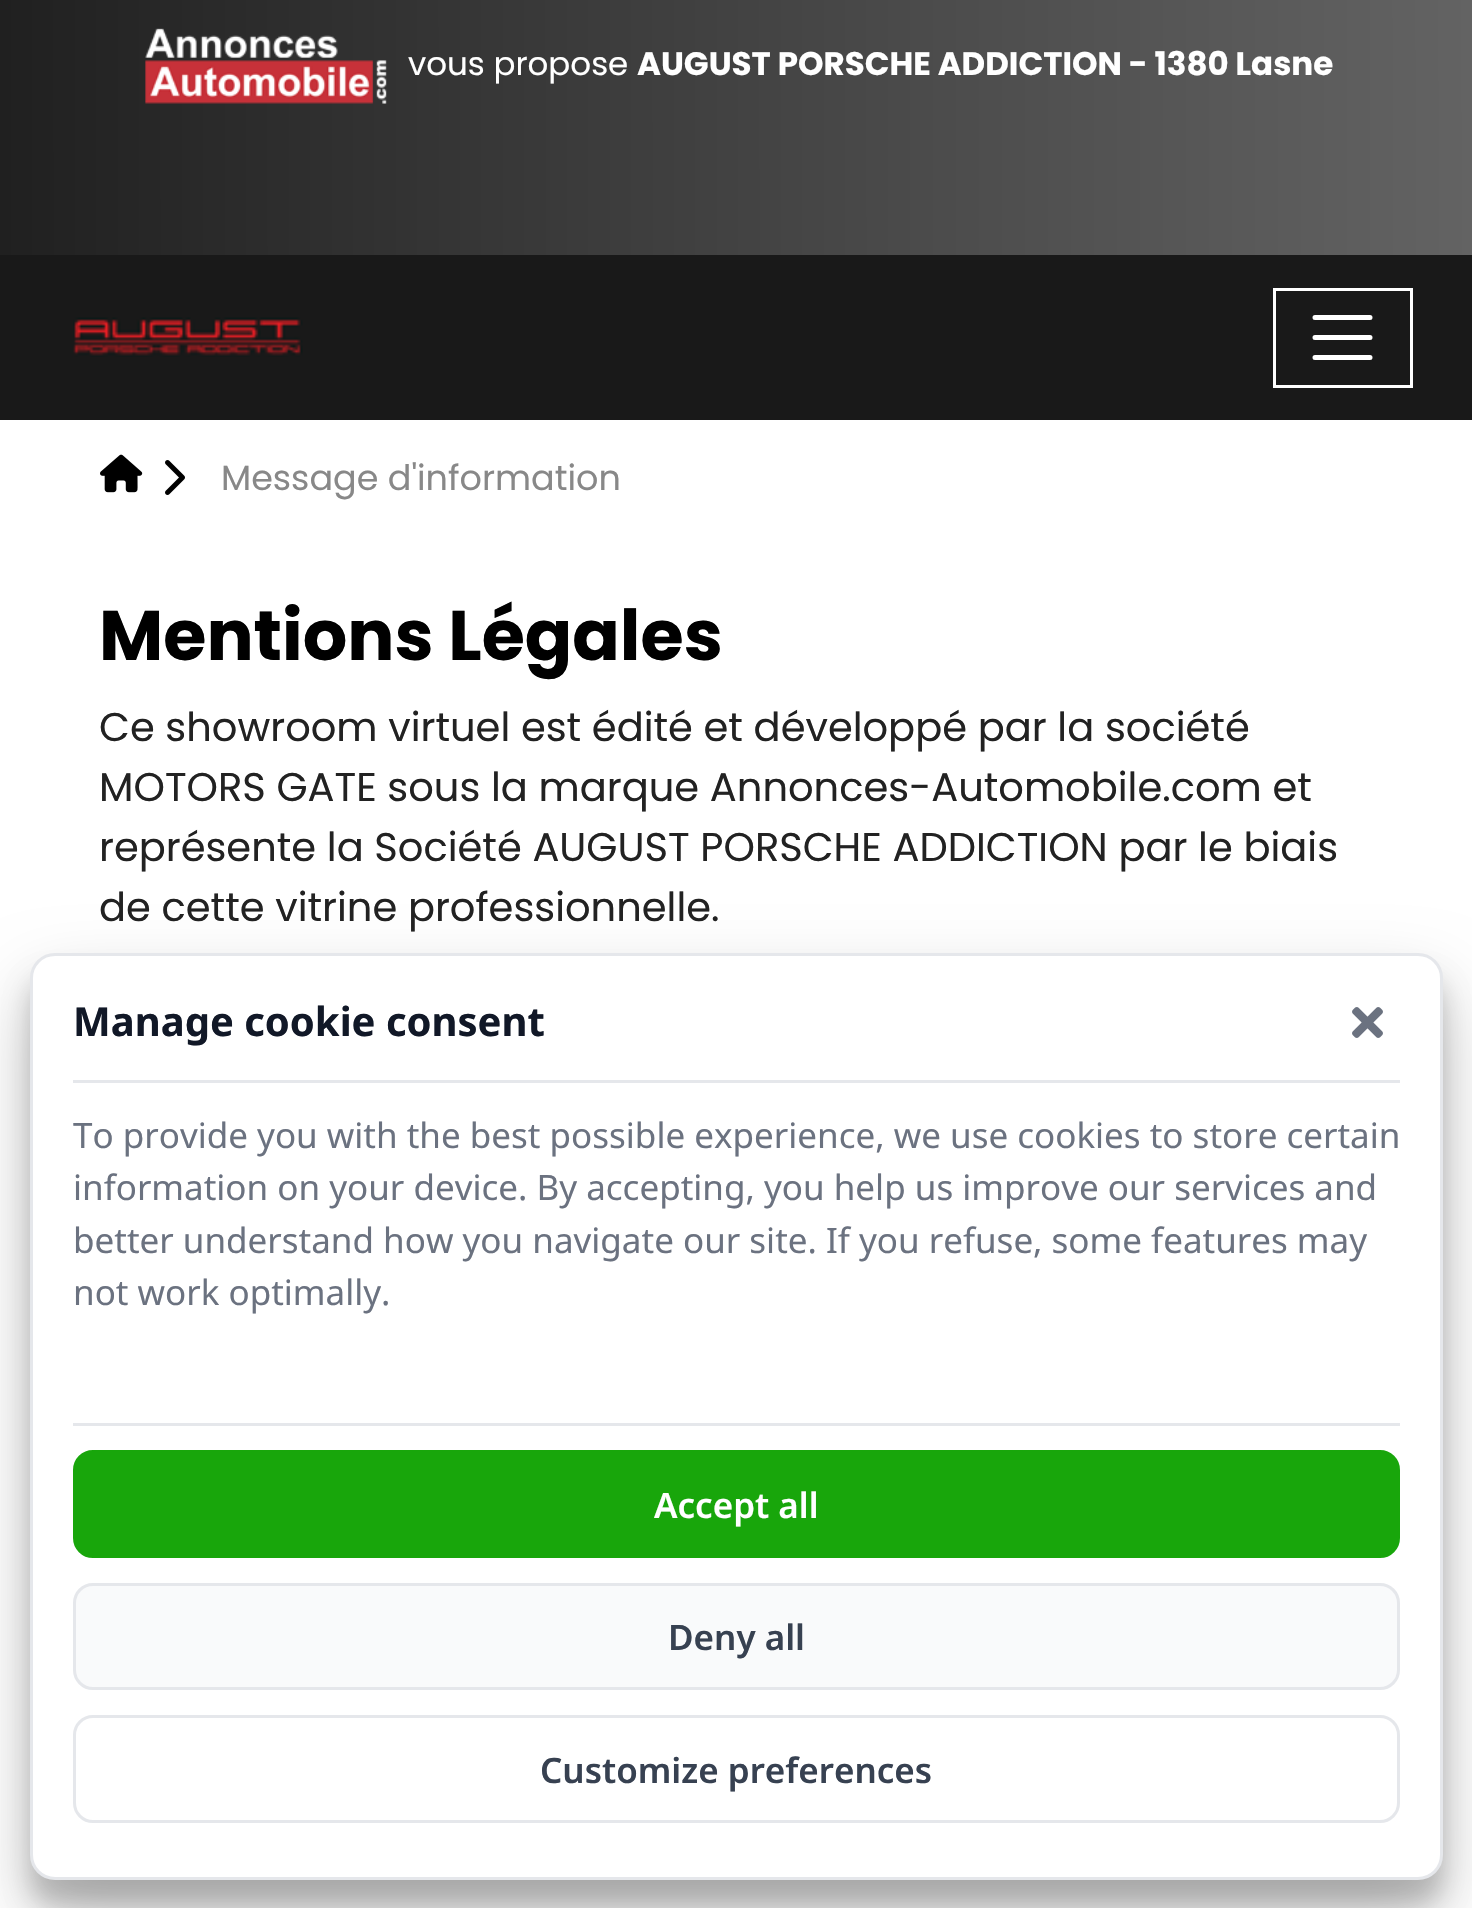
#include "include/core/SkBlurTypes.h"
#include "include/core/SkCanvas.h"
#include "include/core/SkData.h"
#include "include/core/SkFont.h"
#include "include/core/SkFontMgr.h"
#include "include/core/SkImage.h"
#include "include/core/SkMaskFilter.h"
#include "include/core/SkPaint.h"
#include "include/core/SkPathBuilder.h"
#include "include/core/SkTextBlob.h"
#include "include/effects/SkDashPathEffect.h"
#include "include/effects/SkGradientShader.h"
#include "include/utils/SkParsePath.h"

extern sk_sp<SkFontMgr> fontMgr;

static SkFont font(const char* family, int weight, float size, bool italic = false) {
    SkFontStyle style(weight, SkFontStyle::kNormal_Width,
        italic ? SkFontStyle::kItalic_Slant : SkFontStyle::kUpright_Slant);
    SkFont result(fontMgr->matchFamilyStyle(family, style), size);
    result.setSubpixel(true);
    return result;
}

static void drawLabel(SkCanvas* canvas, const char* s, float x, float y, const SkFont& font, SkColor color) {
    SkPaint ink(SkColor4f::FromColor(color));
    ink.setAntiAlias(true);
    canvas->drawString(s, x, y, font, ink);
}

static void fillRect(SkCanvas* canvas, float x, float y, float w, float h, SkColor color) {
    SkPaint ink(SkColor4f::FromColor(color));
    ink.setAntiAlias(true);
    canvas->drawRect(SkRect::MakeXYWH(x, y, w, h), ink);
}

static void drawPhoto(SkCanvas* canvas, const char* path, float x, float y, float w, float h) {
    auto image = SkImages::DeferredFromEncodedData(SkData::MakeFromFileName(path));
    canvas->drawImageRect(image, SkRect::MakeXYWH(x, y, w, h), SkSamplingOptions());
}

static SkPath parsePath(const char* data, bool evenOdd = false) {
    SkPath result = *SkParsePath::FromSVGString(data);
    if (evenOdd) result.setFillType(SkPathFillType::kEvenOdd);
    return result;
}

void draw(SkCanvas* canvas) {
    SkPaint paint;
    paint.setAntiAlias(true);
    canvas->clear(0xFFFFFFFF);
    {
        const SkColor colors[] = {0xFF202020, 0xFF4A4A4A, 0xFF636363};
        const float stops[] = {0, 0.61f, 1};
        const SkPoint ends[] = {{0, 128}, {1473, 127}};
        paint.setShader(SkGradientShader::MakeLinear(ends, colors, stops, 3, SkTileMode::kClamp));
        paint.setAlpha(255);
    }
    canvas->drawRect(SkRect::MakeXYWH(0, 0, 1472, 255), paint);
    drawPhoto(canvas, "assets/img1.png", 145, 28, 242, 76);
    SkFont font1 = font("Poppins", 400, 32.5f);
    drawLabel(canvas, "vous propose", 408, 75, font1, 0xFFFFFFFF);
    SkFont font2 = font("Poppins", 700, 32.5f);
    drawLabel(canvas, "AUGUST PORSCHE ADDICTION - 1380 Lasne", 637, 75, font2, 0xFFFFFFFF);
    fillRect(canvas, 0, 255, 1472, 165, 0xFF191919);
    drawPhoto(canvas, "assets/img2.png", 73, 317, 230, 40);
    paint.setStroke(true);
    paint.setStrokeWidth(3);
    paint.setShader(nullptr);
    paint.setColor(0xFFFFFFFF);
    canvas->drawRect(SkRect::MakeXYWH(1274.5f, 289.5f, 137, 97), paint);
    paint.setStrokeWidth(5);
    paint.setStrokeCap(SkPaint::kRound_Cap);
    canvas->drawPath(parsePath("M1315 317.5H1370M1315 337.5H1370M1315 357.5H1370"), paint);
    drawPhoto(canvas, "assets/img3.png", 100, 454, 43, 39);
    drawPhoto(canvas, "assets/img4.png", 165, 460, 20, 35);
    SkFont font3 = font("Poppins", 400, 35);
    drawLabel(canvas, "Message d'information", 221, 490, font3, 0xFF888888);
    SkFont font4 = font("Poppins", 700, 70);
    drawLabel(canvas, "Mentions Légales", 99, 660, font4, 0xFF000000);
    SkFont font5 = font("Poppins", 400, 40);
    drawLabel(canvas, "Ce showroom virtuel est édité et développé par la société", 99, 741, font5, 0xFF222222);
    drawLabel(canvas, "MOTORS GATE sous la marque Annonces-Automobile.com et", 99, 801, font5, 0xFF222222);
    drawLabel(canvas, "représente la Société AUGUST PORSCHE ADDICTION par le biais", 99, 861, font5, 0xFF222222);
    drawLabel(canvas, "de cette vitrine professionnelle.", 99, 921, font5, 0xFF222222);
    paint.setStroke(false);
    paint.setColor(0x2E000000);
    paint.setMaskFilter(SkMaskFilter::MakeBlur(kNormal_SkBlurStyle, 12.5f));
    canvas->drawRoundRect(SkRect::MakeXYWH(30, 978, 1413, 927), 25, 25, paint);
    paint.setMaskFilter(nullptr);
    paint.setColor(0x38000000);
    paint.setMaskFilter(SkMaskFilter::MakeBlur(kNormal_SkBlurStyle, 35));
    canvas->drawRoundRect(SkRect::MakeXYWH(30, 988, 1413, 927), 25, 25, paint);
    paint.setMaskFilter(nullptr);
    paint.setColor(0xFFFFFFFF);
    canvas->drawRoundRect(SkRect::MakeXYWH(31.5f, 954.5f, 1410, 924), 23.5f, 23.5f, paint);
    paint.setStroke(true);
    paint.setStrokeWidth(3);
    paint.setStrokeCap(SkPaint::kButt_Cap);
    paint.setColor(0xFFE5E7EB);
    canvas->drawRoundRect(SkRect::MakeXYWH(31.5f, 954.5f, 1410, 924), 23.5f, 23.5f, paint);
    SkFont font6 = font("Noto Sans", 700, 40);
    drawLabel(canvas, "Manage cookie consent", 73, 1036, font6, 0xFF111827);
    drawPhoto(canvas, "assets/img5.png", 1352, 1007, 31, 31);
    fillRect(canvas, 73, 1080, 1327, 3, 0xFFE5E7EB);
    canvas->save();
    canvas->clipRect(SkRect::MakeXYWH(73, 1108, 1327, 230));
    SkFont font7 = font("Noto Sans", 400, 35);
    drawLabel(canvas, "To provide you with the best possible experience, we use cookies to store certain", 73, 1148, font7, 0xFF6B7280);
    canvas->restore();
    drawLabel(canvas, "information on your device. By accepting, you help us improve our services and", 73, 1200, font7, 0xFF6B7280);
    drawLabel(canvas, "better understand how you navigate our site. If you refuse, some features may", 73, 1253, font7, 0xFF6B7280);
    drawLabel(canvas, "not work optimally.", 73, 1305, font7, 0xFF6B7280);
    fillRect(canvas, 73, 1423, 1327, 3, 0xFFE5E7EB);
    paint.setStroke(false);
    paint.setColor(0xFF18A60B);
    canvas->drawRoundRect(SkRect::MakeXYWH(74.5f, 1451.5f, 1324, 105), 18.5f, 18.5f, paint);
    paint.setStroke(true);
    canvas->drawRoundRect(SkRect::MakeXYWH(74.5f, 1451.5f, 1324, 105), 18.5f, 18.5f, paint);
    SkFont font8 = font("Noto Sans", 600, 35);
    drawLabel(canvas, "Accept all", 654, 1518, font8, 0xFFFFFFFF);
    paint.setStroke(false);
    paint.setColor(0xFFF9FAFB);
    canvas->drawRoundRect(SkRect::MakeXYWH(74.5f, 1584.5f, 1324, 104), 18.5f, 18.5f, paint);
    paint.setStroke(true);
    paint.setColor(0xFFE5E7EB);
    canvas->drawRoundRect(SkRect::MakeXYWH(74.5f, 1584.5f, 1324, 104), 18.5f, 18.5f, paint);
    drawLabel(canvas, "Deny all", 668, 1650, font8, 0xFF374151);
    canvas->drawRoundRect(SkRect::MakeXYWH(74.5f, 1716.5f, 1324, 105), 18.5f, 18.5f, paint);
    drawLabel(canvas, "Customize preferences", 540, 1783, font8, 0xFF374151);
}
